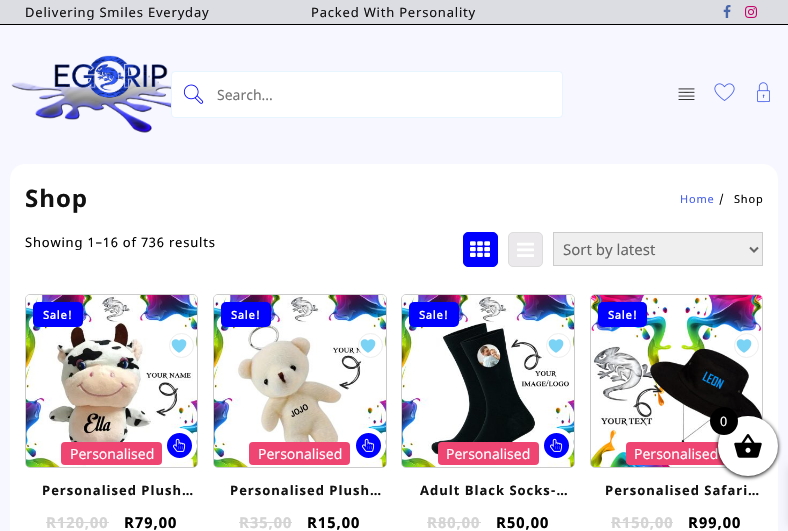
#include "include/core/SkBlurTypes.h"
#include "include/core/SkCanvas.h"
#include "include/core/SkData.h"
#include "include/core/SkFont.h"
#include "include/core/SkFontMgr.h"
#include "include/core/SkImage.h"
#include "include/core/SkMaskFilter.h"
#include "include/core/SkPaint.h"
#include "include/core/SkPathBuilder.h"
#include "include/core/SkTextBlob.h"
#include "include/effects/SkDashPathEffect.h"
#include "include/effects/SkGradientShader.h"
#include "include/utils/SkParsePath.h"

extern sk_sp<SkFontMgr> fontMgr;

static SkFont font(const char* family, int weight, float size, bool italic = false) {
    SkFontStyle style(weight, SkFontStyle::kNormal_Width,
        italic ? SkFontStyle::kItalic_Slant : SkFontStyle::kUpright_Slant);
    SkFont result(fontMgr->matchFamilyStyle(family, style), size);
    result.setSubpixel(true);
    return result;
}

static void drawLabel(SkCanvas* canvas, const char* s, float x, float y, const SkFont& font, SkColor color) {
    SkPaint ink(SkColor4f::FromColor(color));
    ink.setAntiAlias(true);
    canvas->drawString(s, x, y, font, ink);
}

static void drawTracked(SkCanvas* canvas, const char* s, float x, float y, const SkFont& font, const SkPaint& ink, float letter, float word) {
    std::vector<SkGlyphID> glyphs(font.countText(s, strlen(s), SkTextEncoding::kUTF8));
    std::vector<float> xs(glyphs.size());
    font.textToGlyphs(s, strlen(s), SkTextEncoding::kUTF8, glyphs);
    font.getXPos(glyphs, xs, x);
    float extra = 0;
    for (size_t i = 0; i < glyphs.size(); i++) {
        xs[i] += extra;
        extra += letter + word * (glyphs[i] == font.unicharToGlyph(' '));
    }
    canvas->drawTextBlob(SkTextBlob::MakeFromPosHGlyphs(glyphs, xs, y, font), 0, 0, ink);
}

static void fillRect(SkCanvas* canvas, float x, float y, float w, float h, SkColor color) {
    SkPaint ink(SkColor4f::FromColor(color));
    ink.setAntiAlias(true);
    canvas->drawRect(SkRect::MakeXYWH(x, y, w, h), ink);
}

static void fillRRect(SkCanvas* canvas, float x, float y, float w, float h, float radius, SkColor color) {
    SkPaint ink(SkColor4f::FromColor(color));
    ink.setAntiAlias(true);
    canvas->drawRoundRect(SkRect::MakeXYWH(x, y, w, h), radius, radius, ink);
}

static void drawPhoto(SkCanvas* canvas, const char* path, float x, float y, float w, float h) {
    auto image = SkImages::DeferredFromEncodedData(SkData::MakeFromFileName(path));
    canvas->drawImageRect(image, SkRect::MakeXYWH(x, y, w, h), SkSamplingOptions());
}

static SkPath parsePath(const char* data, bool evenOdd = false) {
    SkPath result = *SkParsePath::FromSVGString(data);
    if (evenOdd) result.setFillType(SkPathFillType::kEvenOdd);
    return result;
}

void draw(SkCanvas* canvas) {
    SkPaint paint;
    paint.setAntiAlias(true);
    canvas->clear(0xFFF7F7FF);
    fillRect(canvas, 0, 24, 788, 1, 0xFF000000);
    fillRect(canvas, 0, 0, 788, 24, 0xFFDCDCE3);
    SkFont font1 = font("Noto Sans", 400, 13);
    paint.setColor(0xFF111111);
    drawTracked(canvas, "Delivering Smiles Everyday", 25, 17, font1, paint, 0.8f, 0);
    drawTracked(canvas, "Packed With Personality", 311, 17, font1, paint, 0.8f, 0);
    drawPhoto(canvas, "assets/img1.png", 723, 5, 8, 13);
    drawPhoto(canvas, "assets/img2.png", 745, 6, 12, 12);
    drawPhoto(canvas, "assets/img3.png", 11, 55, 185, 78);
    paint.setColor(0xFFFFFFFF);
    canvas->drawRoundRect(SkRect::MakeXYWH(171.5f, 71.5f, 391, 46), 3.5f, 3.5f, paint);
    paint.setStroke(true);
    paint.setStrokeWidth(1);
    paint.setColor(0xFFE7F5FF);
    canvas->drawRoundRect(SkRect::MakeXYWH(171.5f, 71.5f, 391, 46), 3.5f, 3.5f, paint);
    drawPhoto(canvas, "assets/img4.png", 183, 84, 21, 20);
    SkFont font2 = font("Noto Sans", 400, 14);
    drawLabel(canvas, "Search...", 217, 100, font2, 0xFF757575);
    drawPhoto(canvas, "assets/img5.png", 678, 88, 17, 12);
    drawPhoto(canvas, "assets/img6.png", 714, 83, 21, 18);
    drawPhoto(canvas, "assets/img7.png", 757, 82, 13, 21);
    fillRRect(canvas, 10, 164, 768, 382, 15, 0xFFFFFFFF);
    SkFont font3 = font("Noto Sans", 700, 24);
    paint.setStroke(false);
    paint.setColor(0xFF111111);
    drawTracked(canvas, "Shop", 25, 207, font3, paint, 1, 0);
    SkFont font4 = font("Noto Sans", 400, 11);
    paint.setColor(0xFF465FEA);
    drawTracked(canvas, "Home", 680, 203, font4, paint, 0.8f, 0);
    paint.setColor(0xFF000000);
    drawTracked(canvas, "/", 719, 203, font4, paint, 0.8f, 0);
    drawTracked(canvas, "Shop", 734, 203, font4, paint, 0.8f, 0);
    drawTracked(canvas, "Showing 1–16 of 736 results", 25, 247, font1, paint, 0.8f, 0);
    paint.setColor(0xFF0000FF);
    canvas->drawRoundRect(SkRect::MakeXYWH(463.5f, 232.5f, 34, 34), 4.5f, 4.5f, paint);
    paint.setStroke(true);
    canvas->drawRoundRect(SkRect::MakeXYWH(463.5f, 232.5f, 34, 34), 4.5f, 4.5f, paint);
    drawPhoto(canvas, "assets/img8.png", 470, 241, 20, 16);
    paint.setStroke(false);
    paint.setColor(0xFFEBE9EB);
    canvas->drawRoundRect(SkRect::MakeXYWH(508.5f, 232.5f, 34, 34), 4.5f, 4.5f, paint);
    paint.setStroke(true);
    paint.setColor(0xFFDDDDDD);
    canvas->drawRoundRect(SkRect::MakeXYWH(508.5f, 232.5f, 34, 34), 4.5f, 4.5f, paint);
    drawPhoto(canvas, "assets/img9.png", 517, 242, 17, 15);
    paint.setStroke(false);
    paint.setColor(0xFFEFEFEF);
    canvas->drawRect(SkRect::MakeXYWH(553.5f, 232.5f, 209, 33), paint);
    paint.setStroke(true);
    paint.setColor(0xFFCCCCCC);
    canvas->drawRect(SkRect::MakeXYWH(553.5f, 232.5f, 209, 33), paint);
    paint.setStrokeWidth(2);
    paint.setColor(0xFF666666);
    canvas->drawPath(parsePath("M750 247.5L754 251.5L758 247.5"), paint);
    SkFont font5 = font("Noto Sans", 400, 15);
    drawLabel(canvas, "Sort by latest", 563, 255, font5, 0xFF666666);
    paint.setStrokeWidth(1);
    paint.setColor(0xFFCCCCCC);
    canvas->drawRoundRect(SkRect::MakeXYWH(25.5f, 294.5f, 172, 173), 4.5f, 4.5f, paint);
    drawPhoto(canvas, "assets/img10.png", 26, 295, 171, 172);
    fillRRect(canvas, 33, 302, 50, 25, 5, 0xFF0000FF);
    SkFont font6 = font("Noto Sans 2", 700, 11);
    paint.setStroke(false);
    paint.setColor(0xFFFFFFFF);
    drawTracked(canvas, "Sale!", 43, 319, font6, paint, 0.8f, 0);
    fillRRect(canvas, 61, 442, 101, 23, 4, 0xFFEF4572);
    drawLabel(canvas, "Personalised", 70, 459, font2, 0xFFFFFFFF);
    paint.setColor(0xFF0000FF);
    canvas->drawCircle(179.5f, 445.5f, 15, paint);
    paint.setStroke(true);
    paint.setStrokeWidth(5);
    paint.setColor(0xFFFFFFFF);
    canvas->drawCircle(179.5f, 445.5f, 15, paint);
    drawPhoto(canvas, "assets/img11.png", 173, 438, 13, 14);
    paint.setStroke(false);
    canvas->drawCircle(181.5f, 345.5f, 12, paint);
    paint.setStroke(true);
    paint.setStrokeWidth(1);
    paint.setColor(0xFFEEEEEE);
    canvas->drawCircle(181.5f, 345.5f, 12, paint);
    drawPhoto(canvas, "assets/img12.png", 171, 339, 16, 14);
    SkFont font7 = font("Noto Sans", 700, 13);
    paint.setStroke(false);
    paint.setColor(0xFF111111);
    drawTracked(canvas, "Personalised Plush…", 42, 495, font7, paint, 1, 0);
    SkFont font8 = font("Noto Sans", 700, 15);
    paint.setColor(0xFFD4D4D4);
    drawTracked(canvas, "R120,00", 46, 528, font8, paint, 1, 0);
    fillRect(canvas, 46, 522, 63, 1, 0xFFD4D4D4);
    paint.setColor(0xFF000000);
    drawTracked(canvas, "R79,00", 124, 528, font8, paint, 1, 0);
    paint.setStroke(true);
    paint.setColor(0xFFCCCCCC);
    canvas->drawRoundRect(SkRect::MakeXYWH(213.5f, 294.5f, 173, 173), 4.5f, 4.5f, paint);
    drawPhoto(canvas, "assets/img13.png", 214, 295, 172, 172);
    fillRRect(canvas, 221, 302, 50, 25, 5, 0xFF0000FF);
    paint.setStroke(false);
    paint.setColor(0xFFFFFFFF);
    drawTracked(canvas, "Sale!", 231, 319, font6, paint, 0.8f, 0);
    fillRRect(canvas, 249, 442, 101, 23, 4, 0xFFEF4572);
    drawLabel(canvas, "Personalised", 258, 459, font2, 0xFFFFFFFF);
    paint.setColor(0xFF0000FF);
    canvas->drawCircle(368.5f, 445.5f, 15, paint);
    paint.setStroke(true);
    paint.setStrokeWidth(5);
    paint.setColor(0xFFFFFFFF);
    canvas->drawCircle(368.5f, 445.5f, 15, paint);
    drawPhoto(canvas, "assets/img11.png", 362, 438, 13, 14);
    paint.setStroke(false);
    canvas->drawCircle(370.5f, 345.5f, 12, paint);
    paint.setStroke(true);
    paint.setStrokeWidth(1);
    paint.setColor(0xFFEEEEEE);
    canvas->drawCircle(370.5f, 345.5f, 12, paint);
    drawPhoto(canvas, "assets/img14.png", 360, 339, 16, 14);
    paint.setStroke(false);
    paint.setColor(0xFF111111);
    drawTracked(canvas, "Personalised Plush…", 230, 495, font7, paint, 1, 0);
    paint.setColor(0xFFD4D4D4);
    drawTracked(canvas, "R35,00", 239, 528, font8, paint, 1, 0);
    fillRect(canvas, 239, 522, 53, 1, 0xFFD4D4D4);
    paint.setColor(0xFF000000);
    drawTracked(canvas, "R15,00", 307, 528, font8, paint, 1, 0);
    paint.setStroke(true);
    paint.setColor(0xFFCCCCCC);
    canvas->drawRoundRect(SkRect::MakeXYWH(401.5f, 294.5f, 173, 173), 4.5f, 4.5f, paint);
    drawPhoto(canvas, "assets/img15.png", 402, 295, 172, 172);
    fillRRect(canvas, 409, 302, 50, 25, 5, 0xFF0000FF);
    paint.setStroke(false);
    paint.setColor(0xFFFFFFFF);
    drawTracked(canvas, "Sale!", 419, 319, font6, paint, 0.8f, 0);
    fillRRect(canvas, 438, 442, 101, 23, 4, 0xFFEF4572);
    drawLabel(canvas, "Personalised", 446, 459, font2, 0xFFFFFFFF);
    paint.setColor(0xFF0000FF);
    canvas->drawCircle(556.5f, 445.5f, 15, paint);
    paint.setStroke(true);
    paint.setStrokeWidth(5);
    paint.setColor(0xFFFFFFFF);
    canvas->drawCircle(556.5f, 445.5f, 15, paint);
    drawPhoto(canvas, "assets/img11.png", 550, 438, 13, 14);
    paint.setStroke(false);
    canvas->drawCircle(558.5f, 345.5f, 12, paint);
    paint.setStroke(true);
    paint.setStrokeWidth(1);
    paint.setColor(0xFFEEEEEE);
    canvas->drawCircle(558.5f, 345.5f, 12, paint);
    drawPhoto(canvas, "assets/img12.png", 548, 339, 16, 14);
    paint.setStroke(false);
    paint.setColor(0xFF111111);
    drawTracked(canvas, "Adult Black Socks-…", 420, 495, font7, paint, 1, 0);
    paint.setColor(0xFFD4D4D4);
    drawTracked(canvas, "R80,00", 427, 528, font8, paint, 1, 0);
    fillRect(canvas, 427, 522, 54, 1, 0xFFD4D4D4);
    paint.setColor(0xFF000000);
    drawTracked(canvas, "R50,00", 496, 528, font8, paint, 1, 0);
    paint.setStroke(true);
    paint.setColor(0xFFCCCCCC);
    canvas->drawRoundRect(SkRect::MakeXYWH(590.5f, 294.5f, 172, 173), 4.5f, 4.5f, paint);
    drawPhoto(canvas, "assets/img16.png", 591, 295, 171, 172);
    fillRRect(canvas, 598, 302, 49, 25, 5, 0xFF0000FF);
    paint.setStroke(false);
    paint.setColor(0xFFFFFFFF);
    drawTracked(canvas, "Sale!", 608, 319, font6, paint, 0.8f, 0);
    fillRRect(canvas, 626, 442, 101, 23, 4, 0xFFEF4572);
    drawLabel(canvas, "Personalised", 634, 459, font2, 0xFFFFFFFF);
    canvas->drawCircle(746.5f, 345.5f, 12, paint);
    paint.setStroke(true);
    paint.setColor(0xFFEEEEEE);
    canvas->drawCircle(746.5f, 345.5f, 12, paint);
    drawPhoto(canvas, "assets/img12.png", 736, 339, 16, 14);
    paint.setStroke(false);
    paint.setColor(0xFF111111);
    drawTracked(canvas, "Personalised Safari…", 605, 495, font7, paint, 1, 0);
    paint.setColor(0xFFD4D4D4);
    drawTracked(canvas, "R150,00", 611, 528, font8, paint, 1, 0);
    fillRect(canvas, 611, 522, 62, 1, 0xFFD4D4D4);
    paint.setColor(0xFF000000);
    drawTracked(canvas, "R99,00", 688, 528, font8, paint, 1, 0);
    paint.setMaskFilter(SkMaskFilter::MakeBlur(kNormal_SkBlurStyle, 2));
    canvas->drawRoundRect(SkRect::MakeXYWH(718, 417, 60, 60), 30, 30, paint);
    paint.setMaskFilter(nullptr);
    paint.setColor(0x1A000000);
    paint.setMaskFilter(SkMaskFilter::MakeBlur(kNormal_SkBlurStyle, 5));
    canvas->drawRect(SkRect::MakeXYWH(788, 466, 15, 60), paint);
    paint.setMaskFilter(nullptr);
    paint.setColor(0xFFFFFFFF);
    canvas->drawCircle(748, 446, 30, paint);
    drawPhoto(canvas, "assets/img17.png", 734, 434, 28, 24);
    paint.setColor(0xFF000000);
    canvas->drawCircle(724, 421, 14, paint);
    paint.setColor(0xFFFFFFFF);
    drawTracked(canvas, "0", 720, 426, font1, paint, 0.8f, 0);
}
